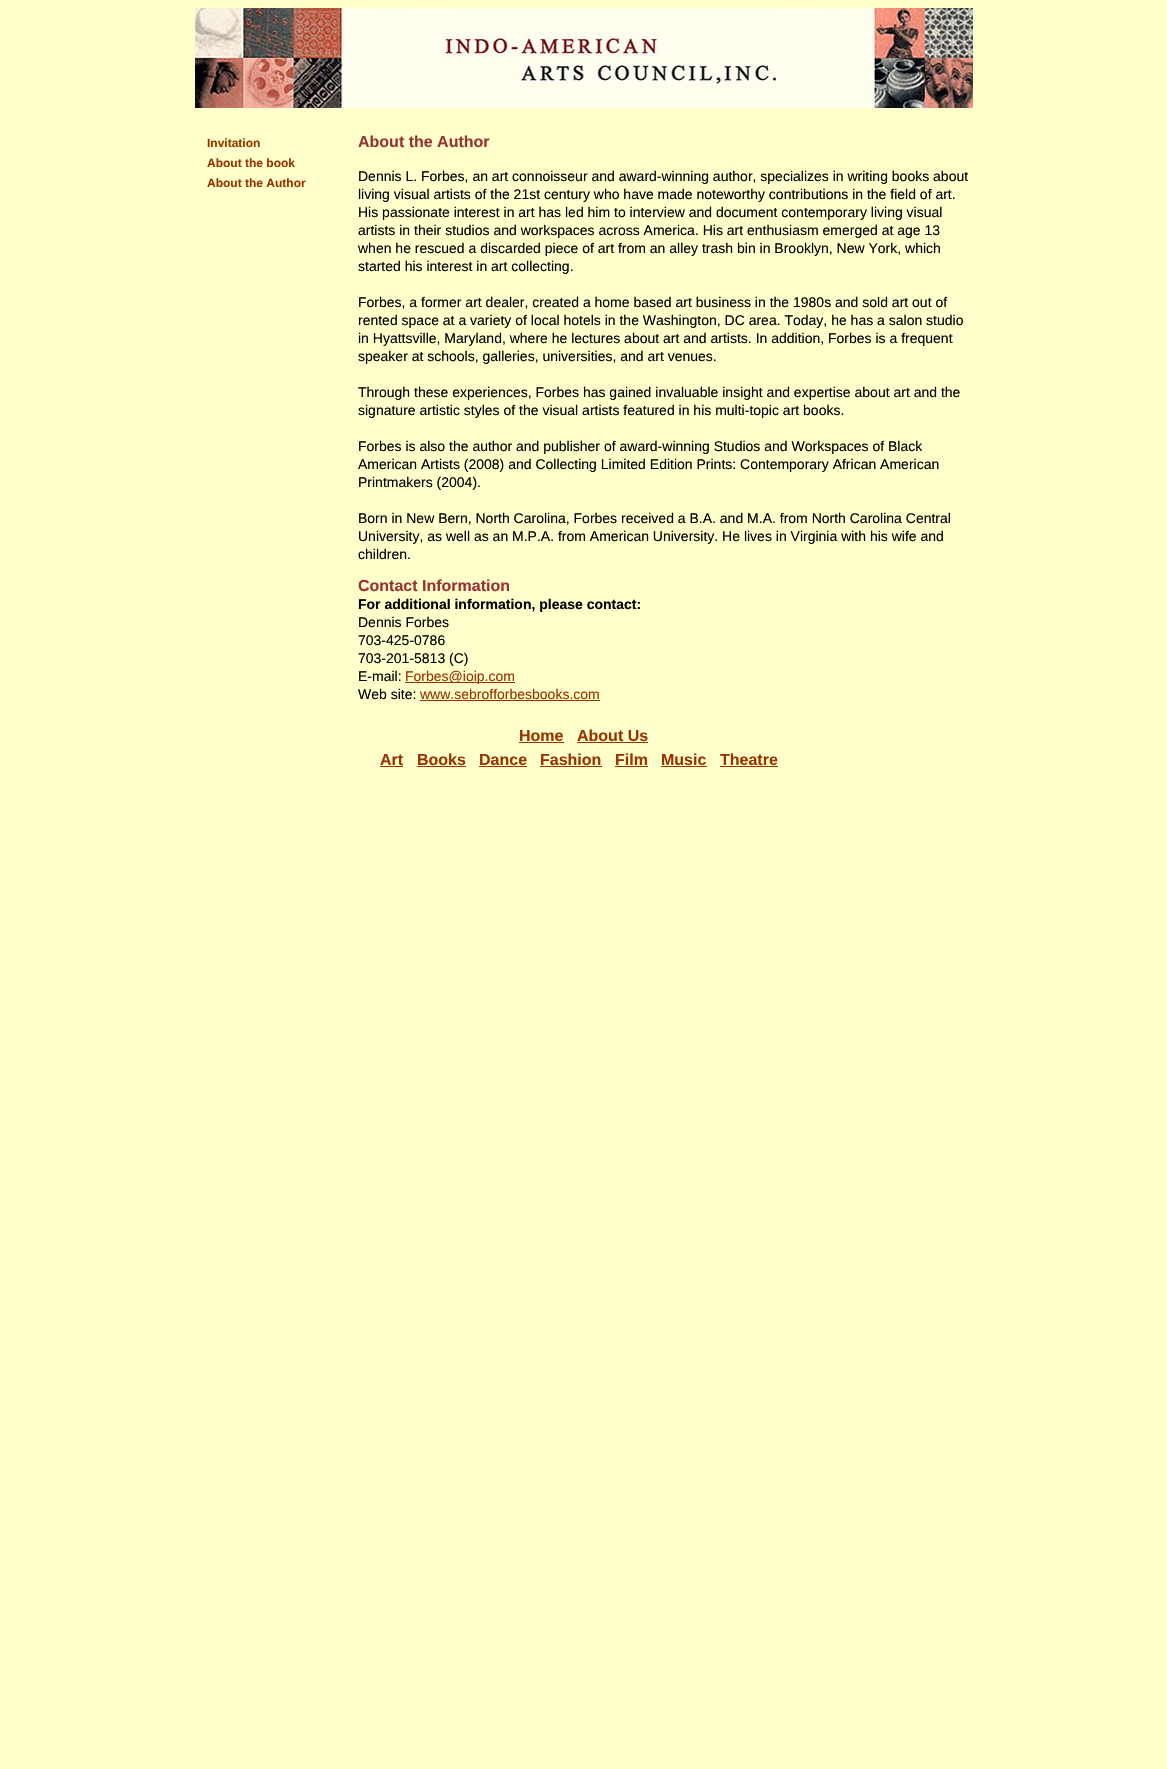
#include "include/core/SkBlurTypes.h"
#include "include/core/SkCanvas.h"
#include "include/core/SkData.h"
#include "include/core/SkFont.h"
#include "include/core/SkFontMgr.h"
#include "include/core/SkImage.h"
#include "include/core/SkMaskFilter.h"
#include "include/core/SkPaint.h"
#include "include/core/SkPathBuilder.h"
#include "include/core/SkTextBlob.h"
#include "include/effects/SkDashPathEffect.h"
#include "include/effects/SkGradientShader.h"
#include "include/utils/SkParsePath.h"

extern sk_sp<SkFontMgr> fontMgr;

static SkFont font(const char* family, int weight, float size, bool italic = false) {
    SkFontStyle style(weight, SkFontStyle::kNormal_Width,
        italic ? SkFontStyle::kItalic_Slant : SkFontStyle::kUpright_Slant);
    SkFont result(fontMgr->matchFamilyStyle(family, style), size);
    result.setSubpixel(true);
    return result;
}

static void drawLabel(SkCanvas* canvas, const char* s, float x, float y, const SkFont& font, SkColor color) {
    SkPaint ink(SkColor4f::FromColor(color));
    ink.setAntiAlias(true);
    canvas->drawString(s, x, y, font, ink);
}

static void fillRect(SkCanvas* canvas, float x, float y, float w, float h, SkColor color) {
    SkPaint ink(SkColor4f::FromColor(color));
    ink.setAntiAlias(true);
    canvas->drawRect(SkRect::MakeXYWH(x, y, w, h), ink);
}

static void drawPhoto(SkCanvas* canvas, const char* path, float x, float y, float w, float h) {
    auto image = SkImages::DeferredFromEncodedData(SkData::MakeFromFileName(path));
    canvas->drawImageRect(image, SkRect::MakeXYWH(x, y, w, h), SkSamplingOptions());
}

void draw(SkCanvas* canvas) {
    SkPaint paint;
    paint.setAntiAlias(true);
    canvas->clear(0xFFFFFFCB);
    drawPhoto(canvas, "assets/img1.png", 195, 8, 778, 100);
    SkFont font1 = font("Liberation Sans", 700, 12);
    drawLabel(canvas, "Invitation", 207, 147, font1, 0xFF993300);
    drawLabel(canvas, "About the book", 207, 167, font1, 0xFF993300);
    drawLabel(canvas, "About the Author", 207, 187, font1, 0xFF993300);
    SkFont font2 = font("Liberation Sans", 700, 16);
    drawLabel(canvas, "About the Author", 358, 147, font2, 0xFF993333);
    SkFont font3 = font("Liberation Sans", 400, 14);
    drawLabel(canvas, "Dennis L. Forbes, an art connoisseur and award-winning author, specializes in writing books about", 358, 181, font3, 0xFF000000);
    drawLabel(canvas, "living visual artists of the 21st century who have made noteworthy contributions in the field of art.", 358, 199, font3, 0xFF000000);
    drawLabel(canvas, "His passionate interest in art has led him to interview and document contemporary living visual", 358, 217, font3, 0xFF000000);
    drawLabel(canvas, "artists in their studios and workspaces across America. His art enthusiasm emerged at age 13", 358, 235, font3, 0xFF000000);
    drawLabel(canvas, "when he rescued a discarded piece of art from an alley trash bin in Brooklyn, New York, which", 358, 253, font3, 0xFF000000);
    drawLabel(canvas, "started his interest in art collecting.", 358, 271, font3, 0xFF000000);
    drawLabel(canvas, "Forbes, a former art dealer, created a home based art business in the 1980s and sold art out of", 358, 307, font3, 0xFF000000);
    drawLabel(canvas, "rented space at a variety of local hotels in the Washington, DC area. Today, he has a salon studio", 358, 325, font3, 0xFF000000);
    drawLabel(canvas, "in Hyattsville, Maryland, where he lectures about art and artists. In addition, Forbes is a frequent", 358, 343, font3, 0xFF000000);
    drawLabel(canvas, "speaker at schools, galleries, universities, and art venues.", 358, 361, font3, 0xFF000000);
    drawLabel(canvas, "Through these experiences, Forbes has gained invaluable insight and expertise about art and the", 358, 397, font3, 0xFF000000);
    drawLabel(canvas, "signature artistic styles of the visual artists featured in his multi-topic art books.", 358, 415, font3, 0xFF000000);
    drawLabel(canvas, "Forbes is also the author and publisher of award-winning Studios and Workspaces of Black", 358, 451, font3, 0xFF000000);
    drawLabel(canvas, "American Artists (2008) and Collecting Limited Edition Prints: Contemporary African American", 358, 469, font3, 0xFF000000);
    drawLabel(canvas, "Printmakers (2004).", 358, 487, font3, 0xFF000000);
    drawLabel(canvas, "Born in New Bern, North Carolina, Forbes received a B.A. and M.A. from North Carolina Central", 358, 523, font3, 0xFF000000);
    drawLabel(canvas, "University, as well as an M.P.A. from American University. He lives in Virginia with his wife and", 358, 541, font3, 0xFF000000);
    drawLabel(canvas, "children.", 358, 559, font3, 0xFF000000);
    drawLabel(canvas, "Contact Information", 358, 591, font2, 0xFF993333);
    SkFont font4 = font("Liberation Sans", 700, 14);
    drawLabel(canvas, "For additional information, please contact:", 358, 609, font4, 0xFF000000);
    drawLabel(canvas, "Dennis Forbes", 358, 627, font3, 0xFF000000);
    drawLabel(canvas, "703-425-0786", 358, 645, font3, 0xFF000000);
    drawLabel(canvas, "703-201-5813 (C)", 358, 663, font3, 0xFF000000);
    drawLabel(canvas, "E-mail:", 358, 681, font3, 0xFF000000);
    fillRect(canvas, 405, 682, 110, 1, 0xFF993300);
    drawLabel(canvas, "Forbes@ioip.com", 405, 681, font3, 0xFF993300);
    drawLabel(canvas, "Web site:", 358, 699, font3, 0xFF000000);
    drawLabel(canvas, "www.sebrofforbesbooks.com", 420, 699, font3, 0xFF993300);
    fillRect(canvas, 420, 700, 180, 1, 0xFF993300);
    drawLabel(canvas, "Home", 519, 741, font2, 0xFF993300);
    fillRect(canvas, 519, 742, 45, 1, 0xFF993300);
    drawLabel(canvas, "About Us", 577, 741, font2, 0xFF993300);
    fillRect(canvas, 577, 742, 71, 1, 0xFF993300);
    drawLabel(canvas, "Art", 380, 765, font2, 0xFF993300);
    fillRect(canvas, 380, 766, 23, 1, 0xFF993300);
    drawLabel(canvas, "Books", 417, 765, font2, 0xFF993300);
    fillRect(canvas, 417, 766, 49, 1, 0xFF993300);
    drawLabel(canvas, "Dance", 479, 765, font2, 0xFF993300);
    fillRect(canvas, 479, 766, 48, 1, 0xFF993300);
    drawLabel(canvas, "Fashion", 540, 765, font2, 0xFF993300);
    fillRect(canvas, 540, 766, 62, 1, 0xFF993300);
    drawLabel(canvas, "Film", 615, 765, font2, 0xFF993300);
    fillRect(canvas, 615, 766, 33, 1, 0xFF993300);
    drawLabel(canvas, "Music", 661, 765, font2, 0xFF993300);
    fillRect(canvas, 661, 766, 46, 1, 0xFF993300);
    drawLabel(canvas, "Theatre", 720, 765, font2, 0xFF993300);
    fillRect(canvas, 720, 766, 58, 1, 0xFF993300);
}
